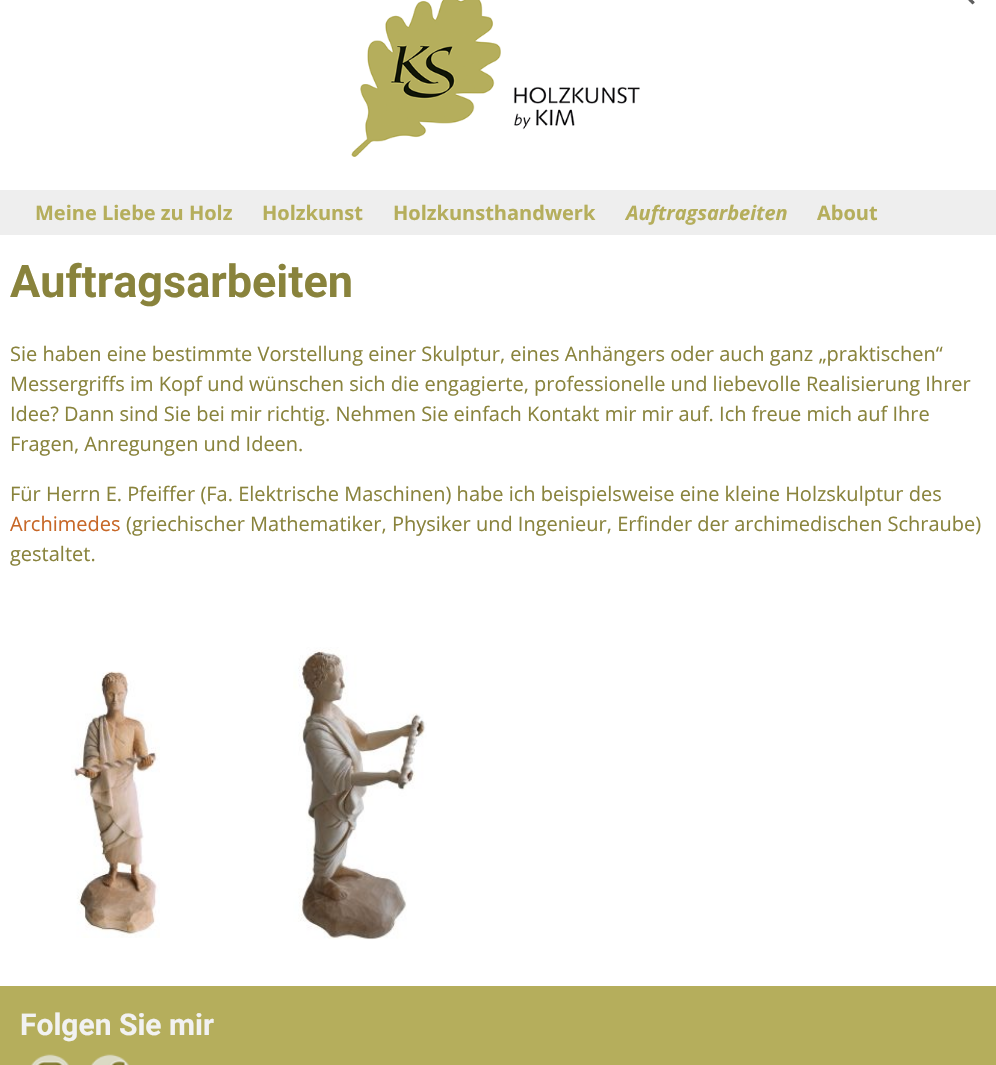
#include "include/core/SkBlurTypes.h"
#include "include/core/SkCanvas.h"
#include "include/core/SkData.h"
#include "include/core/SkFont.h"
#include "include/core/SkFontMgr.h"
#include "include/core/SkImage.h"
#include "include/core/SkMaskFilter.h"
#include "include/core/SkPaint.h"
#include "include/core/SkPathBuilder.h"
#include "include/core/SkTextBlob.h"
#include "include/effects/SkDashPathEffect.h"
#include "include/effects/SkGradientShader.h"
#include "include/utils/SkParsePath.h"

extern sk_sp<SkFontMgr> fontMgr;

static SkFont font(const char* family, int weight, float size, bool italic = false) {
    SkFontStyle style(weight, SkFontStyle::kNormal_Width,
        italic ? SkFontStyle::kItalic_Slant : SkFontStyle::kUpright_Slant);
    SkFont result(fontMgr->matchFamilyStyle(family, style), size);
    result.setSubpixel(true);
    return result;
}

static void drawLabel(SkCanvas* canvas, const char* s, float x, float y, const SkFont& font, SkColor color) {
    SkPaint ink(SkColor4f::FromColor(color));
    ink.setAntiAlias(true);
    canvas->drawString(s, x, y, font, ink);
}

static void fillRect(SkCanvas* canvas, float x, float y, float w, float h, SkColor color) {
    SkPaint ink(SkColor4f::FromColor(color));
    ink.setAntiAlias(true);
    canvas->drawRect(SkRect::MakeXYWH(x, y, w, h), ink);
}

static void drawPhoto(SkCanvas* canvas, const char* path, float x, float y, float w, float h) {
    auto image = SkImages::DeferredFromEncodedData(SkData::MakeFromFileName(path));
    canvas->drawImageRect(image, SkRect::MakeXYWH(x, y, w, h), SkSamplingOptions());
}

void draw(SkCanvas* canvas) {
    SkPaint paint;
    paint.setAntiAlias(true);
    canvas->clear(0xFFFFFFFF);
    drawPhoto(canvas, "assets/img1.png", 351, 0, 289, 157);
    drawPhoto(canvas, "assets/img2.png", 967, 0, 8, 5);
    fillRect(canvas, 0, 190, 996, 45, 0xFFEEEEEE);
    SkFont font1 = font("Open Sans", 700, 20);
    drawLabel(canvas, "Meine Liebe zu Holz", 35, 220, font1, 0xFFB5AE5C);
    drawLabel(canvas, "Holzkunst", 262, 220, font1, 0xFFB5AE5C);
    drawLabel(canvas, "Holzkunsthandwerk", 393, 220, font1, 0xFFB5AE5C);
    SkFont font2 = font("Open Sans", 700, 20, true);
    drawLabel(canvas, "Auftragsarbeiten", 626, 220, font2, 0xFFB5AE5C);
    drawLabel(canvas, "About", 817, 220, font1, 0xFFB5AE5C);
    SkFont font3 = font("Roboto", 700, 45);
    drawLabel(canvas, "Auftragsarbeiten", 10, 297, font3, 0xFF89833C);
    SkFont font4 = font("Open Sans", 400, 20);
    drawLabel(canvas, "Sie haben eine bestimmte Vorstellung einer Skulptur, eines Anhängers oder auch ganz „praktischen“", 10, 361, font4, 0xFF89833C);
    drawLabel(canvas, "Messergriffs im Kopf und wünschen sich die engagierte, professionelle und liebevolle Realisierung Ihrer", 10, 391, font4, 0xFF89833C);
    drawLabel(canvas, "Idee? Dann sind Sie bei mir richtig. Nehmen Sie einfach Kontakt mir mir auf. Ich freue mich auf Ihre", 10, 421, font4, 0xFF89833C);
    drawLabel(canvas, "Fragen, Anregungen und Ideen.", 10, 451, font4, 0xFF89833C);
    drawLabel(canvas, "Für Herrn E. Pfeiffer (Fa. Elektrische Maschinen) habe ich beispielsweise eine kleine Holzskulptur des", 10, 501, font4, 0xFF89833C);
    drawLabel(canvas, "Archimedes", 10, 531, font4, 0xFFC76727);
    drawLabel(canvas, "(griechischer Mathematiker, Physiker und Ingenieur, Erfinder der archimedischen Schraube)", 126, 531, font4, 0xFF89833C);
    drawLabel(canvas, "gestaltet.", 10, 561, font4, 0xFF89833C);
    drawPhoto(canvas, "assets/img3.png", 71, 671, 89, 267);
    drawPhoto(canvas, "assets/img4.png", 293, 647, 134, 293);
    fillRect(canvas, 0, 986, 996, 79, 0xFFB5AE5C);
    SkFont font5 = font("Roboto", 700, 30);
    drawLabel(canvas, "Folgen Sie mir", 20, 1035, font5, 0xFFF2F2F2);
    drawPhoto(canvas, "assets/img5.png", 31, 1054, 38, 11);
    drawPhoto(canvas, "assets/img6.png", 91, 1054, 38, 11);
}
